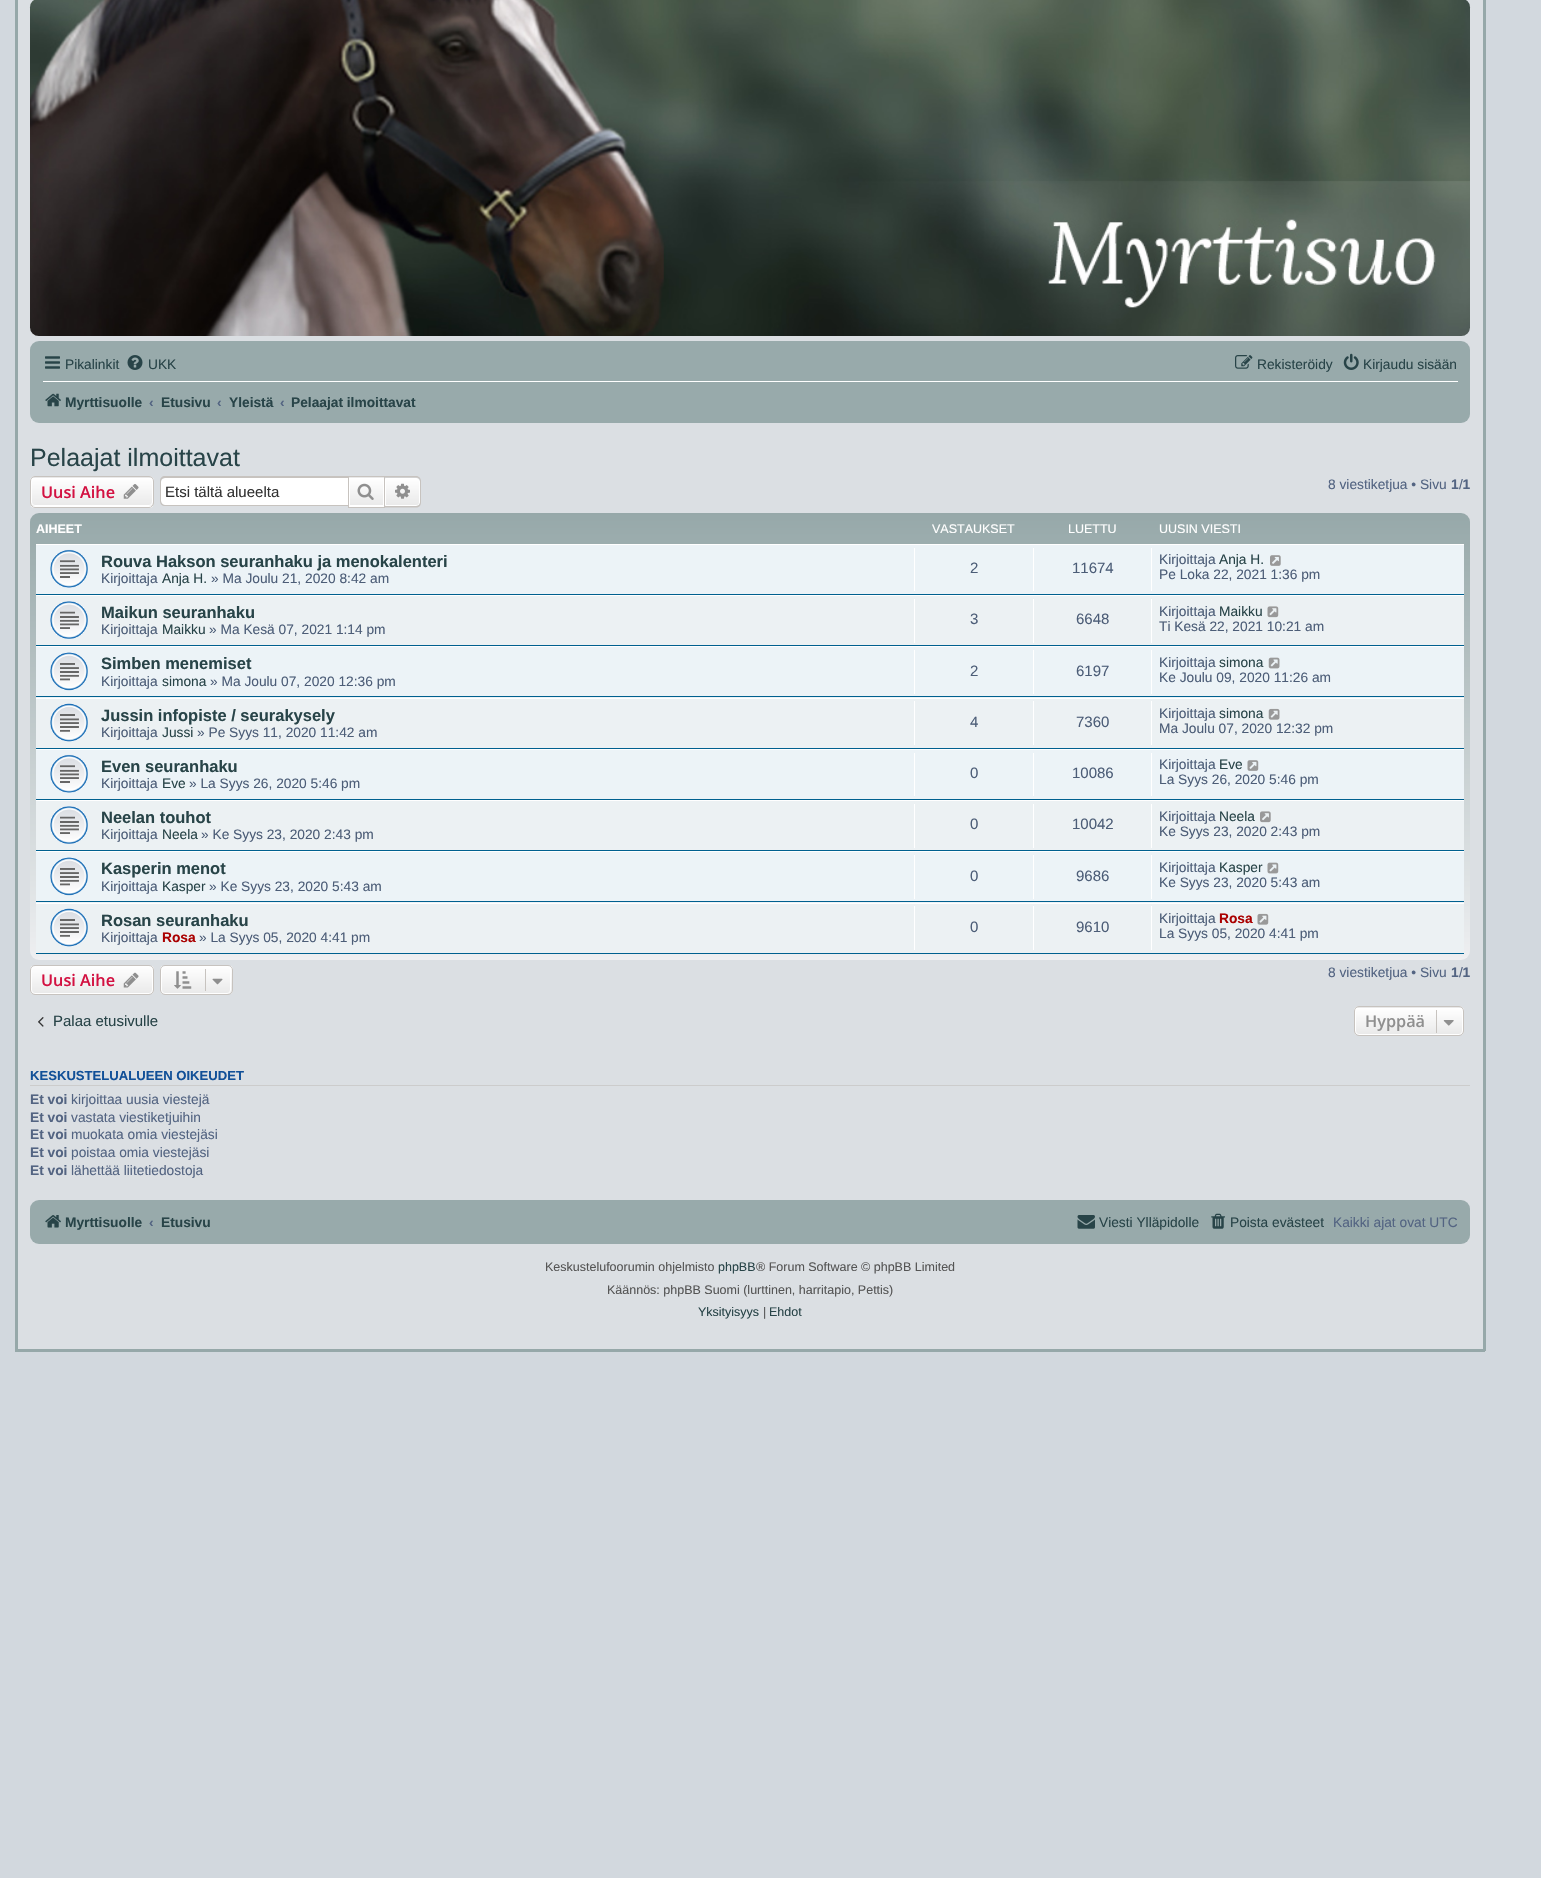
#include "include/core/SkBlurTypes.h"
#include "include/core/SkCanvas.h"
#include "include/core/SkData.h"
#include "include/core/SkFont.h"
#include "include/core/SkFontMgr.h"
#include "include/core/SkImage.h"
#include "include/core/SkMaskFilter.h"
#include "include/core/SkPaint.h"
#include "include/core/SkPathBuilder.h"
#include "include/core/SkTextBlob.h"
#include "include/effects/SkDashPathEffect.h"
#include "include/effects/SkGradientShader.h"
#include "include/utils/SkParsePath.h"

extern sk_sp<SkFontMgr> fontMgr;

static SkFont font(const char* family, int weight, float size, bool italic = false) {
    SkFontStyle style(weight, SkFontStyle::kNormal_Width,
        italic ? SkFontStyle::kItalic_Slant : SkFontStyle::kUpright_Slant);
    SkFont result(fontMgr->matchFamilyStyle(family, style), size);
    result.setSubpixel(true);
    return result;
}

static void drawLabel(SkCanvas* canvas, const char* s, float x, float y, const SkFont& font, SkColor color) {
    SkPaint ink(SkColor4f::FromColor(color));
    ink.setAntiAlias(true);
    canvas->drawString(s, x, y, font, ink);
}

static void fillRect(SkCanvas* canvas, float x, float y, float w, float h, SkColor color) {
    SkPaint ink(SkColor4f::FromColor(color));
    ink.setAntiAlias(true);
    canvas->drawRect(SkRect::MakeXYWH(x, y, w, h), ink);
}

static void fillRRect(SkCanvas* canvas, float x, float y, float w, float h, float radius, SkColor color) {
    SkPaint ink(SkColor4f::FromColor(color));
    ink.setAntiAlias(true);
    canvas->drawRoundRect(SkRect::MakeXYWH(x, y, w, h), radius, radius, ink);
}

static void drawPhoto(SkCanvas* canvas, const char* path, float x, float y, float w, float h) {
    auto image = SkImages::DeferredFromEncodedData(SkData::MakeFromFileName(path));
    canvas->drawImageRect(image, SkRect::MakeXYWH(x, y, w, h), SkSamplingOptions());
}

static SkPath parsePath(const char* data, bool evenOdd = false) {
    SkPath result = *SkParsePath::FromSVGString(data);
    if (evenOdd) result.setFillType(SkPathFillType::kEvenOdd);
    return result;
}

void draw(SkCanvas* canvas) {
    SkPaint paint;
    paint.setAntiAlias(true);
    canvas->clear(0xFFD2D8DE);
    fillRect(canvas, 18, 0, 1465, 1349, 0xFFDBDFE3);
    fillRect(canvas, 1483, 0, 3, 1351, 0xFF96A8A9);
    fillRect(canvas, 15, 1349, 1470, 3, 0xFF96A8A9);
    fillRect(canvas, 15, 0, 3, 1351, 0xFF96A8A9);
    drawPhoto(canvas, "assets/img1.png", 29, 0, 1442, 336);
    fillRRect(canvas, 30, 341, 1440, 82, 9, 0xFF98AAAB);
    drawPhoto(canvas, "assets/img2.png", 45, 356, 15, 13);
    SkFont font1 = font("Liberation Sans", 400, 13.75f);
    drawLabel(canvas, "Pikalinkit", 65, 369, font1, 0xFF284448);
    drawPhoto(canvas, "assets/img3.png", 127, 355, 16, 15);
    drawLabel(canvas, "UKK", 148, 369, font1, 0xFF284448);
    drawPhoto(canvas, "assets/img4.png", 1235, 355, 18, 14);
    drawLabel(canvas, "Rekisteröidy", 1257, 369, font1, 0xFF284448);
    drawPhoto(canvas, "assets/img5.png", 1343, 353, 16, 17);
    drawLabel(canvas, "Kirjaudu sisään", 1363, 369, font1, 0xFF284448);
    fillRect(canvas, 43, 381, 1415, 1, 0xFFFFFFFF);
    drawPhoto(canvas, "assets/img6.png", 45, 393, 16, 14);
    SkFont font2 = font("Liberation Sans", 700, 13.75f);
    drawLabel(canvas, "Myrttisuolle", 65, 407, font2, 0xFF284448);
    drawLabel(canvas, "‹", 149, 407, font2, 0xFF536482);
    drawLabel(canvas, "Etusivu", 161, 407, font2, 0xFF284448);
    drawLabel(canvas, "‹", 217, 407, font2, 0xFF536482);
    drawLabel(canvas, "Yleistä", 229, 407, font2, 0xFF284448);
    drawLabel(canvas, "‹", 280, 407, font2, 0xFF536482);
    drawLabel(canvas, "Pelaajat ilmoittavat", 291, 407, font2, 0xFF284448);
    SkFont font3 = font("Liberation Sans", 400, 25);
    drawLabel(canvas, "Pelaajat ilmoittavat", 30, 466, font3, 0xFF284448);
    canvas->save();
    canvas->clipPath(parsePath("M35 476H149C152 476 154 478 154 481V503C154 506 152 508 149 508H35C32 508 30 506 30 503V481C30 478 32 476 35 476Z"), true);
    {
        const SkColor colors[] = {0xFFFFFFFF, 0xFFE9E9E9};
        const float stops[] = {0, 1};
        const SkPoint ends[] = {{92, 449}, {92, 478}};
        paint.setShader(SkGradientShader::MakeLinear(ends, colors, stops, 2, SkTileMode::kClamp));
        paint.setAlpha(255);
    }
    canvas->drawRect(SkRect::MakeXYWH(30, 476, 124, 2), paint);
    {
        const SkColor colors[] = {0xFFFFFFFF, 0xFFE9E9E9};
        const float stops[] = {0, 1};
        const SkPoint ends[] = {{92, 478}, {92, 506}};
        paint.setShader(SkGradientShader::MakeLinear(ends, colors, stops, 2, SkTileMode::kClamp));
        paint.setAlpha(255);
    }
    canvas->drawRect(SkRect::MakeXYWH(30, 478, 124, 28), paint);
    {
        const SkColor colors[] = {0xFFFFFFFF, 0xFFE9E9E9};
        const float stops[] = {0, 1};
        const SkPoint ends[] = {{92, 506}, {92, 535}};
        paint.setShader(SkGradientShader::MakeLinear(ends, colors, stops, 2, SkTileMode::kClamp));
        paint.setAlpha(255);
    }
    canvas->drawRect(SkRect::MakeXYWH(30, 506, 124, 2), paint);
    canvas->restore();
    paint.setStroke(true);
    paint.setStrokeWidth(1);
    paint.setShader(nullptr);
    paint.setColor(0xFFFFFFFF);
    canvas->drawRoundRect(SkRect::MakeXYWH(31.5f, 478.5f, 121, 27), 3.5f, 3.5f, paint);
    paint.setColor(0xFFC7C3BF);
    canvas->drawRoundRect(SkRect::MakeXYWH(30.5f, 476.5f, 123, 31), 4.5f, 4.5f, paint);
    SkFont font4 = font("Open Sans", 600, 16.25f);
    drawLabel(canvas, "Uusi Aihe", 41, 498, font4, 0xFFD31141);
    drawPhoto(canvas, "assets/img7.png", 123, 484, 16, 15);
    paint.setStroke(false);
    paint.setColor(0xFFFFFFFF);
    canvas->drawPath(parsePath("M165 478H348V505H165C163 505 161 503 161 501V482C161 480 163 478 165 478Z"), paint);
    paint.setColor(0xFFC7C3BF);
    canvas->drawPath(parsePath("M165 476H348V506H165C162 506 160 504 160 501V481C160 478 162 476 165 476ZM165 478H348V505H165C163 505 161 503 161 501V481C161 479 163 478 165 478Z", true), paint);
    SkFont font5 = font("Liberation Sans", 400, 15);
    drawLabel(canvas, "Etsi tältä alueelta", 165, 497, font5, 0xFF333333);
    fillRect(canvas, 349, 477, 35, 1, 0xFFE9E9E9);
    {
        const SkColor colors[] = {0xFFFFFFFF, 0xFFE9E9E9};
        const float stops[] = {0, 1};
        const SkPoint ends[] = {{366, 478}, {366, 506}};
        paint.setShader(SkGradientShader::MakeLinear(ends, colors, stops, 2, SkTileMode::kClamp));
        paint.setAlpha(255);
    }
    canvas->drawRect(SkRect::MakeXYWH(350, 479, 33, 26), paint);
    {
        const SkColor colors[] = {0xFFFFFFFF, 0xFFE9E9E9};
        const float stops[] = {0, 1};
        const SkPoint ends[] = {{366, 506}, {366, 535}};
        paint.setShader(SkGradientShader::MakeLinear(ends, colors, stops, 2, SkTileMode::kClamp));
        paint.setAlpha(255);
    }
    canvas->drawRect(SkRect::MakeXYWH(348, 506, 37, 1), paint);
    paint.setStroke(true);
    paint.setShader(nullptr);
    paint.setColor(0xFFFFFFFF);
    canvas->drawRect(SkRect::MakeXYWH(349.5f, 478.5f, 34, 27), paint);
    paint.setColor(0xFFC7C3BF);
    canvas->drawRect(SkRect::MakeXYWH(348.5f, 476.5f, 36, 31), paint);
    drawPhoto(canvas, "assets/img8.png", 357, 483, 17, 17);
    paint.setStroke(false);
    {
        const SkColor colors[] = {0xFFFFFFFF, 0xFFE9E9E9};
        const float stops[] = {0, 1};
        const SkPoint ends[] = {{403, 478}, {403, 506}};
        paint.setShader(SkGradientShader::MakeLinear(ends, colors, stops, 2, SkTileMode::kClamp));
        paint.setAlpha(255);
    }
    canvas->drawPath(parsePath("M385.5 478.5H416C418 478.5 419.5 480 419.5 482V502C419.5 504 418 505.5 416 505.5H385.5Z"), paint);
    paint.setStroke(true);
    paint.setShader(nullptr);
    paint.setColor(0xFFFFFFFF);
    canvas->drawPath(parsePath("M385.5 478.5H416C418 478.5 419.5 480 419.5 482V502C419.5 504 418 505.5 416 505.5H385.5Z"), paint);
    paint.setStroke(false);
    paint.setColor(0xFFC7C3BF);
    canvas->drawPath(parsePath("M385 476H416C419 476 421 478.5 421 481V502.5C421 505.5 419 507.5 416 507.5H385ZM385 477.5H416C418.5 477.5 420 479 420 481V502.5C420 504.5 418.5 506 416 506H385Z", true), paint);
    drawPhoto(canvas, "assets/img9.png", 395, 483, 15, 16);
    drawLabel(canvas, "8 viestiketjua • Sivu", 1328, 489, font1, 0xFF536482);
    drawLabel(canvas, "1 1", 1451, 489, font2, 0xFF536482);
    drawLabel(canvas, "/", 1459, 489, font1, 0xFF536482);
    {
        const SkColor colors[] = {0xFF96A8A9, 0xFFEEEFF1};
        const float stops[] = {0, 1};
        const SkPoint ends[] = {{750, 512}, {750, 960}};
        paint.setShader(SkGradientShader::MakeLinear(ends, colors, stops, 2, SkTileMode::kClamp));
        paint.setAlpha(255);
    }
    canvas->drawRoundRect(SkRect::MakeXYWH(30, 513, 1440, 447), 9, 9, paint);
    SkFont font6 = font("Liberation Sans", 700, 12.5f);
    drawLabel(canvas, "AIHEET", 36, 533, font6, 0xFFFFFFFF);
    SkFont font7 = font("Liberation Sans", 400, 12.5f);
    drawLabel(canvas, "VASTAUKSET", 932, 533, font7, 0xFFFFFFFF);
    drawLabel(canvas, "LUETTU", 1068, 533, font7, 0xFFFFFFFF);
    drawLabel(canvas, "UUSIN VIESTI", 1159, 533, font7, 0xFFFFFFFF);
    fillRect(canvas, 36, 545, 1428, 49, 0xFFECF3F7);
    fillRect(canvas, 36, 544, 1428, 1, 0xFFFFFFFF);
    fillRect(canvas, 36, 594, 1428, 1, 0xFF00608F);
    drawPhoto(canvas, "assets/img10.png", 50, 549, 38, 39);
    SkFont font8 = font("Liberation Sans", 700, 16.5f);
    drawLabel(canvas, "Rouva Hakson seuranhaku ja menokalenteri", 101, 567, font8, 0xFF284448);
    drawLabel(canvas, "Kirjoittaja", 101, 583, font1, 0xFF4C5D77);
    drawLabel(canvas, "Anja H.", 162, 583, font1, 0xFF284448);
    drawLabel(canvas, "» Ma Joulu 21, 2020 8:42 am", 211, 583, font1, 0xFF4C5D77);
    fillRect(canvas, 914, 548, 1, 43, 0xFFFFFFFF);
    drawLabel(canvas, "2", 970, 573, font5, 0xFF4C5D77);
    fillRect(canvas, 1033, 548, 1, 43, 0xFFFFFFFF);
    drawLabel(canvas, "11674", 1072, 573, font5, 0xFF4C5D77);
    fillRect(canvas, 1151, 548, 1, 43, 0xFFFFFFFF);
    drawLabel(canvas, "Kirjoittaja", 1159, 564, font1, 0xFF4C5D77);
    drawLabel(canvas, "Anja H.", 1219, 564, font1, 0xFF284448);
    drawPhoto(canvas, "assets/img11.png", 1270, 555, 11, 11);
    drawLabel(canvas, "Pe Loka 22, 2021 1:36 pm", 1159, 579, font1, 0xFF4C5D77);
    fillRect(canvas, 36, 596, 1428, 49, 0xFFECF1F3);
    fillRect(canvas, 36, 595, 1428, 1, 0xFFFFFFFF);
    fillRect(canvas, 36, 645, 1428, 1, 0xFF00608F);
    drawPhoto(canvas, "assets/img12.png", 50, 601, 38, 38);
    drawLabel(canvas, "Maikun seuranhaku", 101, 618, font8, 0xFF284448);
    drawLabel(canvas, "Kirjoittaja", 101, 634, font1, 0xFF4C5D77);
    drawLabel(canvas, "Maikku", 162, 634, font1, 0xFF284448);
    drawLabel(canvas, "» Ma Kesä 07, 2021 1:14 pm", 209, 634, font1, 0xFF4C5D77);
    fillRect(canvas, 914, 599, 1, 44, 0xFFFFFFFF);
    drawLabel(canvas, "3", 970, 624, font5, 0xFF4C5D77);
    fillRect(canvas, 1033, 599, 1, 44, 0xFFFFFFFF);
    drawLabel(canvas, "6648", 1076, 624, font5, 0xFF4C5D77);
    fillRect(canvas, 1151, 599, 1, 44, 0xFFFFFFFF);
    drawLabel(canvas, "Kirjoittaja", 1159, 616, font1, 0xFF4C5D77);
    drawLabel(canvas, "Maikku", 1219, 616, font1, 0xFF284448);
    drawPhoto(canvas, "assets/img13.png", 1267, 606, 12, 12);
    drawLabel(canvas, "Ti Kesä 22, 2021 10:21 am", 1159, 631, font1, 0xFF4C5D77);
    fillRect(canvas, 36, 647, 1428, 51, 0xFFECF3F7);
    fillRect(canvas, 36, 646, 1428, 1, 0xFFFFFFFF);
    fillRect(canvas, 36, 696, 1428, 1, 0xFF00608F);
    drawPhoto(canvas, "assets/img14.png", 50, 652, 38, 39);
    drawLabel(canvas, "Simben menemiset", 101, 669, font8, 0xFF284448);
    drawLabel(canvas, "Kirjoittaja", 101, 686, font1, 0xFF4C5D77);
    drawLabel(canvas, "simona", 162, 686, font1, 0xFF284448);
    drawLabel(canvas, "» Ma Joulu 07, 2020 12:36 pm", 210, 686, font1, 0xFF4C5D77);
    fillRect(canvas, 914, 650, 1, 44, 0xFFFFFFFF);
    drawLabel(canvas, "2", 970, 676, font5, 0xFF4C5D77);
    fillRect(canvas, 1033, 650, 1, 44, 0xFFFFFFFF);
    drawLabel(canvas, "6197", 1076, 676, font5, 0xFF4C5D77);
    fillRect(canvas, 1151, 650, 1, 44, 0xFFFFFFFF);
    drawLabel(canvas, "Kirjoittaja", 1159, 667, font1, 0xFF4C5D77);
    drawLabel(canvas, "simona", 1219, 667, font1, 0xFF284448);
    drawPhoto(canvas, "assets/img15.png", 1268, 657, 12, 12);
    drawLabel(canvas, "Ke Joulu 09, 2020 11:26 am", 1159, 682, font1, 0xFF4C5D77);
    fillRect(canvas, 36, 699, 1428, 49, 0xFFECF1F3);
    fillRect(canvas, 36, 698, 1428, 1, 0xFFFFFFFF);
    fillRect(canvas, 36, 748, 1428, 1, 0xFF00608F);
    drawPhoto(canvas, "assets/img16.png", 50, 703, 38, 39);
    drawLabel(canvas, "Jussin infopiste / seurakysely", 101, 721, font8, 0xFF284448);
    drawLabel(canvas, "Kirjoittaja", 101, 737, font1, 0xFF4C5D77);
    drawLabel(canvas, "Jussi", 162, 737, font1, 0xFF284448);
    drawLabel(canvas, "» Pe Syys 11, 2020 11:42 am", 197, 737, font1, 0xFF4C5D77);
    fillRect(canvas, 914, 701, 1, 44, 0xFFFFFFFF);
    drawLabel(canvas, "4", 970, 727, font5, 0xFF4C5D77);
    fillRect(canvas, 1033, 701, 1, 44, 0xFFFFFFFF);
    drawLabel(canvas, "7360", 1076, 727, font5, 0xFF4C5D77);
    fillRect(canvas, 1151, 701, 1, 44, 0xFFFFFFFF);
    drawLabel(canvas, "Kirjoittaja", 1159, 718, font1, 0xFF4C5D77);
    drawLabel(canvas, "simona", 1219, 718, font1, 0xFF284448);
    drawPhoto(canvas, "assets/img17.png", 1268, 708, 12, 12);
    drawLabel(canvas, "Ma Joulu 07, 2020 12:32 pm", 1159, 733, font1, 0xFF4C5D77);
    fillRect(canvas, 36, 750, 1428, 49, 0xFFECF3F7);
    fillRect(canvas, 36, 749, 1428, 1, 0xFFFFFFFF);
    fillRect(canvas, 36, 799, 1428, 1, 0xFF00608F);
    drawPhoto(canvas, "assets/img18.png", 50, 754, 38, 39);
    drawLabel(canvas, "Even seuranhaku", 101, 772, font8, 0xFF284448);
    drawLabel(canvas, "Kirjoittaja", 101, 788, font1, 0xFF4C5D77);
    drawLabel(canvas, "Eve", 162, 788, font1, 0xFF284448);
    drawLabel(canvas, "» La Syys 26, 2020 5:46 pm", 189, 788, font1, 0xFF4C5D77);
    fillRect(canvas, 914, 753, 1, 43, 0xFFFFFFFF);
    drawLabel(canvas, "0", 970, 778, font5, 0xFF4C5D77);
    fillRect(canvas, 1033, 753, 1, 43, 0xFFFFFFFF);
    drawLabel(canvas, "10086", 1072, 778, font5, 0xFF4C5D77);
    fillRect(canvas, 1151, 753, 1, 43, 0xFFFFFFFF);
    drawLabel(canvas, "Kirjoittaja", 1159, 769, font1, 0xFF4C5D77);
    drawLabel(canvas, "Eve", 1219, 769, font1, 0xFF284448);
    drawPhoto(canvas, "assets/img19.png", 1247, 760, 12, 11);
    drawLabel(canvas, "La Syys 26, 2020 5:46 pm", 1159, 784, font1, 0xFF4C5D77);
    fillRect(canvas, 36, 801, 1428, 49, 0xFFECF1F3);
    fillRect(canvas, 36, 800, 1428, 1, 0xFFFFFFFF);
    fillRect(canvas, 36, 850, 1428, 1, 0xFF00608F);
    drawPhoto(canvas, "assets/img12.png", 50, 806, 38, 38);
    drawLabel(canvas, "Neelan touhot", 101, 823, font8, 0xFF284448);
    drawLabel(canvas, "Kirjoittaja", 101, 839, font1, 0xFF4C5D77);
    drawLabel(canvas, "Neela", 162, 839, font1, 0xFF284448);
    drawLabel(canvas, "» Ke Syys 23, 2020 2:43 pm", 201, 839, font1, 0xFF4C5D77);
    fillRect(canvas, 914, 804, 1, 44, 0xFFFFFFFF);
    drawLabel(canvas, "0", 970, 829, font5, 0xFF4C5D77);
    fillRect(canvas, 1033, 804, 1, 44, 0xFFFFFFFF);
    drawLabel(canvas, "10042", 1072, 829, font5, 0xFF4C5D77);
    fillRect(canvas, 1151, 804, 1, 44, 0xFFFFFFFF);
    drawLabel(canvas, "Kirjoittaja", 1159, 821, font1, 0xFF4C5D77);
    drawLabel(canvas, "Neela", 1219, 821, font1, 0xFF284448);
    drawPhoto(canvas, "assets/img20.png", 1260, 811, 11, 12);
    drawLabel(canvas, "Ke Syys 23, 2020 2:43 pm", 1159, 836, font1, 0xFF4C5D77);
    fillRect(canvas, 36, 852, 1428, 51, 0xFFECF3F7);
    fillRect(canvas, 36, 851, 1428, 1, 0xFFFFFFFF);
    fillRect(canvas, 36, 901, 1428, 1, 0xFF00608F);
    drawPhoto(canvas, "assets/img14.png", 50, 857, 38, 39);
    drawLabel(canvas, "Kasperin menot", 101, 874, font8, 0xFF284448);
    drawLabel(canvas, "Kirjoittaja", 101, 891, font1, 0xFF4C5D77);
    drawLabel(canvas, "Kasper", 162, 891, font1, 0xFF284448);
    drawLabel(canvas, "» Ke Syys 23, 2020 5:43 am", 209, 891, font1, 0xFF4C5D77);
    fillRect(canvas, 914, 855, 1, 44, 0xFFFFFFFF);
    drawLabel(canvas, "0", 970, 881, font5, 0xFF4C5D77);
    fillRect(canvas, 1033, 855, 1, 44, 0xFFFFFFFF);
    drawLabel(canvas, "9686", 1076, 881, font5, 0xFF4C5D77);
    fillRect(canvas, 1151, 855, 1, 44, 0xFFFFFFFF);
    drawLabel(canvas, "Kirjoittaja", 1159, 872, font1, 0xFF4C5D77);
    drawLabel(canvas, "Kasper", 1219, 872, font1, 0xFF284448);
    drawPhoto(canvas, "assets/img21.png", 1267, 862, 12, 12);
    drawLabel(canvas, "Ke Syys 23, 2020 5:43 am", 1159, 887, font1, 0xFF4C5D77);
    fillRect(canvas, 36, 904, 1428, 49, 0xFFECF1F3);
    fillRect(canvas, 36, 903, 1428, 1, 0xFFFFFFFF);
    fillRect(canvas, 36, 953, 1428, 1, 0xFF00608F);
    drawPhoto(canvas, "assets/img16.png", 50, 908, 38, 39);
    drawLabel(canvas, "Rosan seuranhaku", 101, 926, font8, 0xFF284448);
    drawLabel(canvas, "Kirjoittaja", 101, 942, font1, 0xFF4C5D77);
    drawLabel(canvas, "Rosa", 162, 942, font2, 0xFFAA0000);
    drawLabel(canvas, "» La Syys 05, 2020 4:41 pm", 199, 942, font1, 0xFF4C5D77);
    fillRect(canvas, 914, 906, 1, 44, 0xFFFFFFFF);
    drawLabel(canvas, "0", 970, 932, font5, 0xFF4C5D77);
    fillRect(canvas, 1033, 906, 1, 44, 0xFFFFFFFF);
    drawLabel(canvas, "9610", 1076, 932, font5, 0xFF4C5D77);
    fillRect(canvas, 1151, 906, 1, 44, 0xFFFFFFFF);
    drawLabel(canvas, "Kirjoittaja", 1159, 923, font1, 0xFF4C5D77);
    drawLabel(canvas, "Rosa", 1219, 923, font2, 0xFFAA0000);
    drawPhoto(canvas, "assets/img22.png", 1257, 913, 12, 12);
    drawLabel(canvas, "La Syys 05, 2020 4:41 pm", 1159, 938, font1, 0xFF4C5D77);
    canvas->save();
    canvas->clipPath(parsePath("M35 965H149C152 965 154 967 154 970V990C154 993 152 995 149 995H35C32 995 30 993 30 990V970C30 967 32 965 35 965Z"), true);
    {
        const SkColor colors[] = {0xFFFFFFFF, 0xFFE9E9E9};
        const float stops[] = {0, 1};
        const SkPoint ends[] = {{92, 966}, {92, 994}};
        paint.setShader(SkGradientShader::MakeLinear(ends, colors, stops, 2, SkTileMode::kClamp));
        paint.setAlpha(255);
    }
    canvas->drawRect(SkRect::MakeXYWH(30, 966, 124, 28), paint);
    canvas->restore();
    paint.setStroke(true);
    paint.setShader(nullptr);
    paint.setColor(0xFFFFFFFF);
    canvas->drawRoundRect(SkRect::MakeXYWH(31.5f, 966.5f, 121, 27), 3.5f, 3.5f, paint);
    paint.setColor(0xFFC7C3BF);
    canvas->drawRoundRect(SkRect::MakeXYWH(30.5f, 965.5f, 123, 29), 4.5f, 4.5f, paint);
    drawLabel(canvas, "Uusi Aihe", 41, 986, font4, 0xFFD31141);
    drawPhoto(canvas, "assets/img23.png", 123, 972, 16, 16);
    canvas->save();
    canvas->clipPath(parsePath("M165 965H228C231 965 233 967 233 970V990C233 993 231 995 228 995H165C162 995 160 993 160 990V970C160 967 162 965 165 965Z"), true);
    paint.setStroke(false);
    {
        const SkColor colors[] = {0xFFFFFFFF, 0xFFE9E9E9};
        const float stops[] = {0, 1};
        const SkPoint ends[] = {{196, 966}, {196, 994}};
        paint.setShader(SkGradientShader::MakeLinear(ends, colors, stops, 2, SkTileMode::kClamp));
        paint.setAlpha(255);
    }
    canvas->drawRect(SkRect::MakeXYWH(160, 966, 73, 28), paint);
    canvas->restore();
    paint.setStroke(true);
    paint.setShader(nullptr);
    paint.setColor(0xFFFFFFFF);
    canvas->drawRoundRect(SkRect::MakeXYWH(161.5f, 966.5f, 69, 27), 3.5f, 3.5f, paint);
    paint.setColor(0xFFC7C3BF);
    canvas->drawRoundRect(SkRect::MakeXYWH(160.5f, 965.5f, 72, 29), 4.5f, 4.5f, paint);
    drawPhoto(canvas, "assets/img24.png", 174, 971, 18, 18);
    fillRect(canvas, 205, 969, 1, 22, 0xFFC7C3BF);
    drawPhoto(canvas, "assets/img25.png", 212, 978, 11, 7);
    drawLabel(canvas, "8 viestiketjua • Sivu", 1328, 977, font1, 0xFF536482);
    drawLabel(canvas, "1 1", 1451, 977, font2, 0xFF536482);
    drawLabel(canvas, "/", 1459, 977, font1, 0xFF536482);
    drawPhoto(canvas, "assets/img26.png", 38, 1017, 6, 10);
    drawLabel(canvas, "Palaa etusivulle", 53, 1026, font5, 0xFF284448);
    canvas->save();
    canvas->clipPath(parsePath("M1359 1006H1459C1462 1006 1464 1008 1464 1011V1031C1464 1034 1462 1036 1459 1036H1359C1356 1036 1354 1034 1354 1031V1011C1354 1008 1356 1006 1359 1006Z"), true);
    paint.setStroke(false);
    {
        const SkColor colors[] = {0xFFFFFFFF, 0xFFE9E9E9};
        const float stops[] = {0, 1};
        const SkPoint ends[] = {{1409, 980}, {1409, 1008}};
        paint.setShader(SkGradientShader::MakeLinear(ends, colors, stops, 2, SkTileMode::kClamp));
        paint.setAlpha(255);
    }
    canvas->drawRect(SkRect::MakeXYWH(1354, 1006, 110, 2), paint);
    {
        const SkColor colors[] = {0xFFFFFFFF, 0xFFE9E9E9};
        const float stops[] = {0, 1};
        const SkPoint ends[] = {{1409, 1008}, {1409, 1035}};
        paint.setShader(SkGradientShader::MakeLinear(ends, colors, stops, 2, SkTileMode::kClamp));
        paint.setAlpha(255);
    }
    canvas->drawRect(SkRect::MakeXYWH(1354, 1008, 110, 27), paint);
    canvas->restore();
    paint.setStroke(true);
    paint.setShader(nullptr);
    paint.setColor(0xFFFFFFFF);
    canvas->drawRoundRect(SkRect::MakeXYWH(1355.5f, 1008.5f, 107, 26), 3.5f, 3.5f, paint);
    paint.setColor(0xFFC7C3BF);
    canvas->drawRoundRect(SkRect::MakeXYWH(1354.5f, 1006.5f, 109, 29), 4.5f, 4.5f, paint);
    drawLabel(canvas, "Hyppää", 1365, 1027, font4, 0xFF8F8F8F);
    fillRect(canvas, 1436, 1010, 1, 23, 0xFFC7C3BF);
    drawPhoto(canvas, "assets/img27.png", 1443, 1020, 11, 6);
    fillRect(canvas, 30, 1085, 1440, 1, 0xFFCCCCCC);
    SkFont font9 = font("Liberation Sans", 700, 13.1f);
    drawLabel(canvas, "KESKUSTELUALUEEN OIKEUDET", 30, 1080, font9, 0xFF115098);
    drawLabel(canvas, "Et voi", 30, 1104, font2, 0xFF536482);
    drawLabel(canvas, "kirjoittaa uusia viestejä", 71, 1104, font1, 0xFF536482);
    drawLabel(canvas, "Et voi", 30, 1122, font2, 0xFF536482);
    drawLabel(canvas, "vastata viestiketjuihin", 71, 1122, font1, 0xFF536482);
    drawLabel(canvas, "Et voi", 30, 1139, font2, 0xFF536482);
    drawLabel(canvas, "muokata omia viestejäsi", 71, 1139, font1, 0xFF536482);
    drawLabel(canvas, "Et voi", 30, 1157, font2, 0xFF536482);
    drawLabel(canvas, "poistaa omia viestejäsi", 71, 1157, font1, 0xFF536482);
    drawLabel(canvas, "Et voi", 30, 1175, font2, 0xFF536482);
    drawLabel(canvas, "lähettää liitetiedostoja", 71, 1175, font1, 0xFF536482);
    fillRRect(canvas, 30, 1200, 1440, 44, 9, 0xFF98AAAB);
    drawPhoto(canvas, "assets/img28.png", 45, 1215, 16, 13);
    drawLabel(canvas, "Myrttisuolle", 65, 1227, font2, 0xFF284448);
    drawLabel(canvas, "‹", 149, 1227, font2, 0xFF536482);
    drawLabel(canvas, "Etusivu", 161, 1227, font2, 0xFF284448);
    drawPhoto(canvas, "assets/img29.png", 1077, 1215, 18, 14);
    drawLabel(canvas, "Viesti Ylläpidolle", 1099, 1227, font1, 0xFF284448);
    drawPhoto(canvas, "assets/img30.png", 1211, 1213, 14, 16);
    drawLabel(canvas, "Poista evästeet", 1230, 1227, font1, 0xFF284448);
    drawLabel(canvas, "Kaikki ajat ovat UTC", 1333, 1227, font1, 0xFF536482);
    drawLabel(canvas, "Keskustelufoorumin ohjelmisto", 545, 1271, font7, 0xFF555555);
    drawLabel(canvas, "phpBB", 718, 1271, font7, 0xFF284448);
    drawLabel(canvas, "® Forum Software © phpBB Limited", 756, 1271, font7, 0xFF555555);
    drawLabel(canvas, "Käännös: phpBB Suomi (lurttinen, harritapio, Pettis)", 607, 1294, font7, 0xFF555555);
    drawLabel(canvas, "Yksityisyys", 698, 1316, font7, 0xFF284448);
    drawLabel(canvas, "|", 763, 1316, font7, 0xFF555555);
    drawLabel(canvas, "Ehdot", 769, 1316, font7, 0xFF284448);
}
